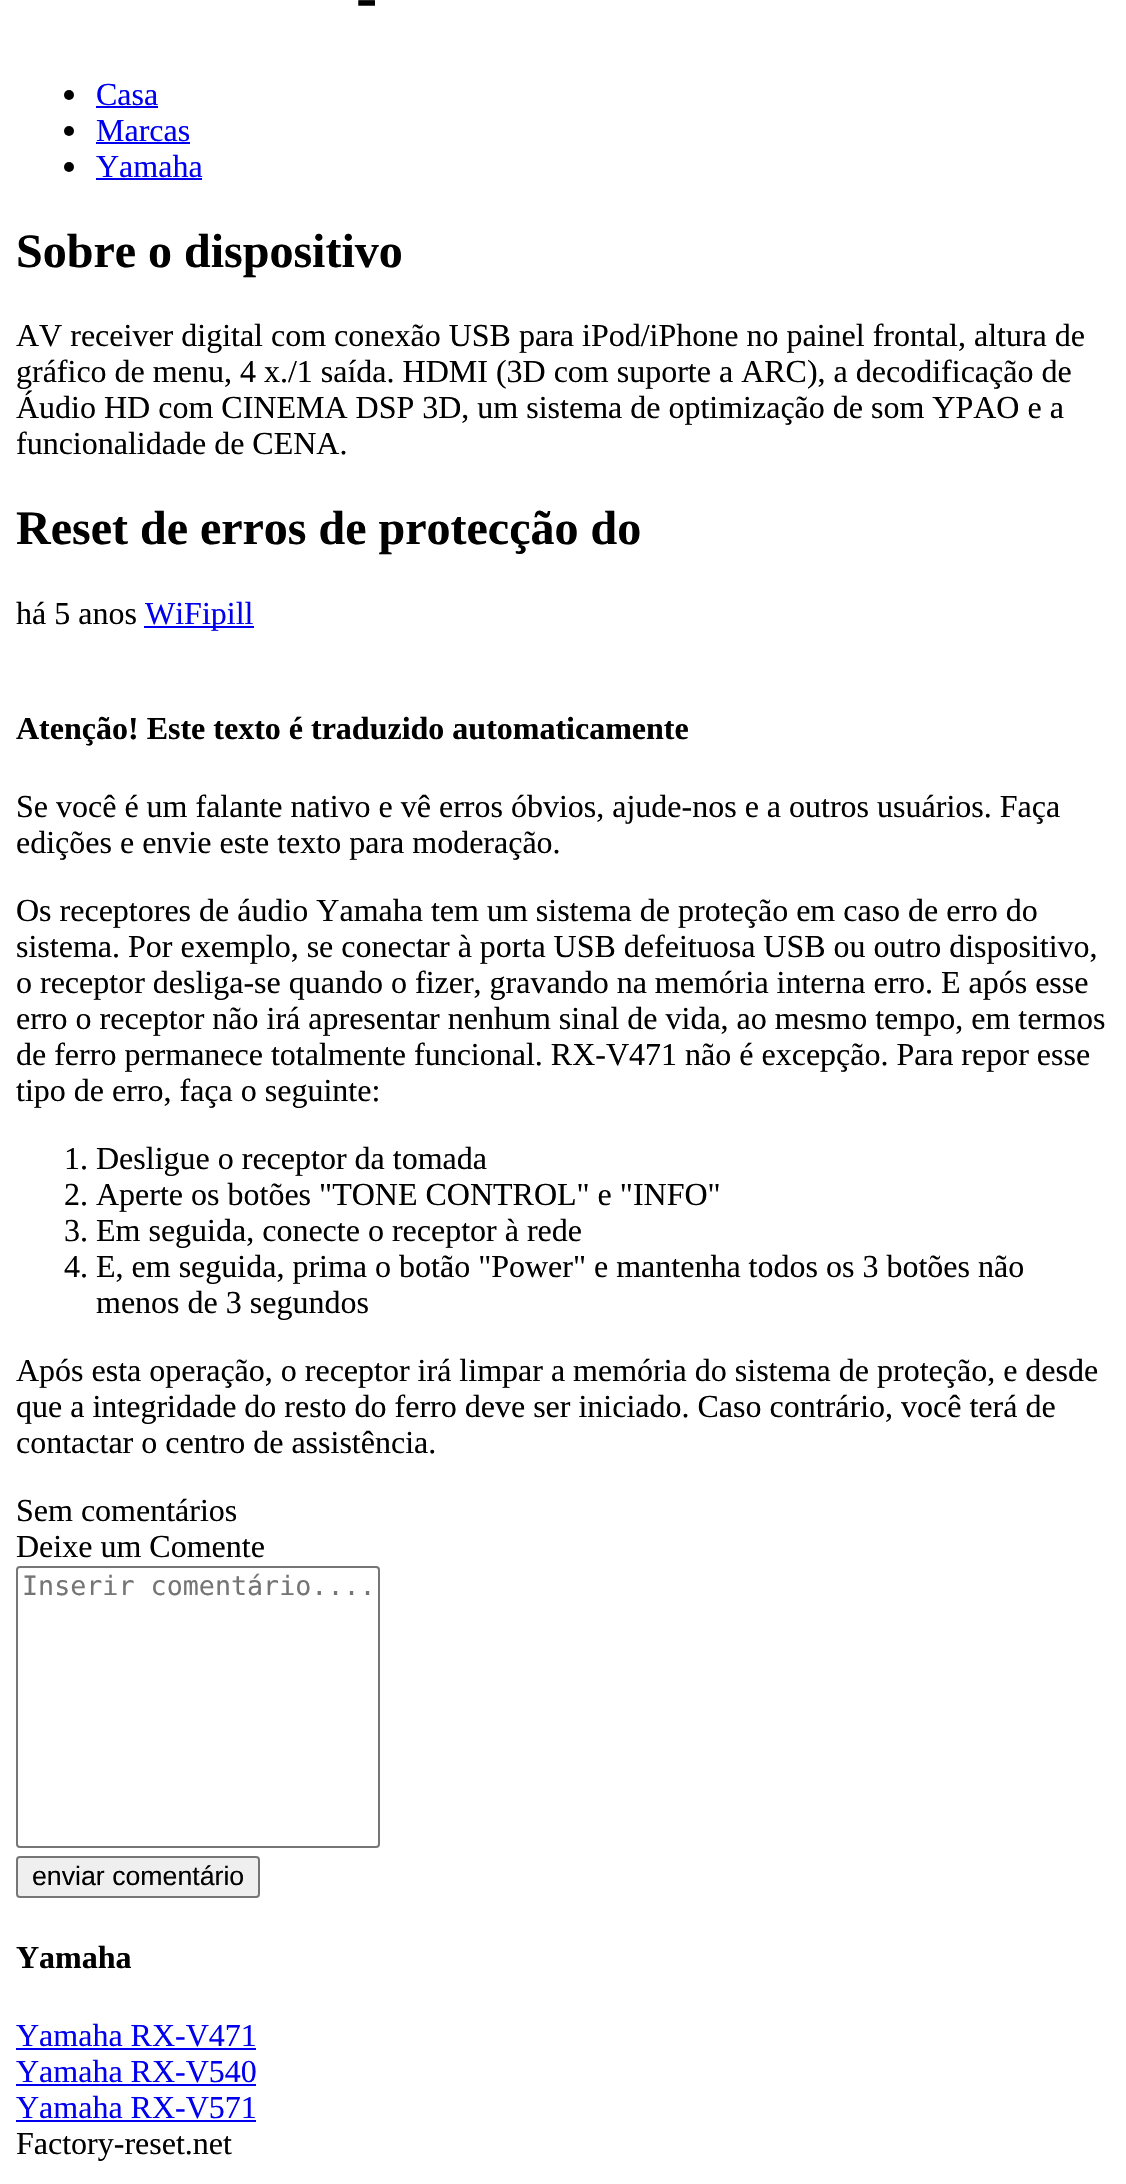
#include "include/core/SkBlurTypes.h"
#include "include/core/SkCanvas.h"
#include "include/core/SkData.h"
#include "include/core/SkFont.h"
#include "include/core/SkFontMgr.h"
#include "include/core/SkImage.h"
#include "include/core/SkMaskFilter.h"
#include "include/core/SkPaint.h"
#include "include/core/SkPathBuilder.h"
#include "include/core/SkTextBlob.h"
#include "include/effects/SkDashPathEffect.h"
#include "include/effects/SkGradientShader.h"
#include "include/utils/SkParsePath.h"

extern sk_sp<SkFontMgr> fontMgr;

static SkFont font(const char* family, int weight, float size, bool italic = false) {
    SkFontStyle style(weight, SkFontStyle::kNormal_Width,
        italic ? SkFontStyle::kItalic_Slant : SkFontStyle::kUpright_Slant);
    SkFont result(fontMgr->matchFamilyStyle(family, style), size);
    result.setSubpixel(true);
    return result;
}

static void drawLabel(SkCanvas* canvas, const char* s, float x, float y, const SkFont& font, SkColor color) {
    SkPaint ink(SkColor4f::FromColor(color));
    ink.setAntiAlias(true);
    canvas->drawString(s, x, y, font, ink);
}

static void fillRect(SkCanvas* canvas, float x, float y, float w, float h, SkColor color) {
    SkPaint ink(SkColor4f::FromColor(color));
    ink.setAntiAlias(true);
    canvas->drawRect(SkRect::MakeXYWH(x, y, w, h), ink);
}

void draw(SkCanvas* canvas) {
    SkPaint paint;
    paint.setAntiAlias(true);
    canvas->clear(0xFFFFFFFF);
    SkFont font1 = font("Liberation Serif", 700, 64);
    drawLabel(canvas, "-", 356, 18, font1, 0xFF000000);
    paint.setColor(0xFF000000);
    canvas->drawCircle(69, 95, 5, paint);
    SkFont font2 = font("Liberation Serif", 400, 32);
    drawLabel(canvas, "Casa", 96, 105, font2, 0xFF0000EE);
    fillRect(canvas, 96, 106, 62, 2, 0xFF0000EE);
    canvas->drawCircle(69, 131, 5, paint);
    drawLabel(canvas, "Marcas", 96, 141, font2, 0xFF0000EE);
    fillRect(canvas, 96, 142, 94, 2, 0xFF0000EE);
    canvas->drawCircle(69, 167, 5, paint);
    drawLabel(canvas, "Yamaha", 96, 177, font2, 0xFF0000EE);
    fillRect(canvas, 96, 178, 106, 2, 0xFF0000EE);
    SkFont font3 = font("Liberation Serif", 700, 48);
    drawLabel(canvas, "Sobre o dispositivo", 16, 267, font3, 0xFF000000);
    drawLabel(canvas, "AV receiver digital com conexão USB para iPod/iPhone no painel frontal, altura de", 16, 346, font2, 0xFF000000);
    drawLabel(canvas, "gráfico de menu, 4 x./1 saída. HDMI (3D com suporte a ARC), a decodificação de", 16, 382, font2, 0xFF000000);
    drawLabel(canvas, "Áudio HD com CINEMA DSP 3D, um sistema de optimização de som YPAO e a", 16, 418, font2, 0xFF000000);
    drawLabel(canvas, "funcionalidade de CENA.", 16, 454, font2, 0xFF000000);
    drawLabel(canvas, "Reset de erros de protecção do", 16, 544, font3, 0xFF000000);
    drawLabel(canvas, "há 5 anos", 16, 624, font2, 0xFF000000);
    fillRect(canvas, 144, 626, 110, 2, 0xFF0000EE);
    drawLabel(canvas, "WiFipill", 145, 624, font2, 0xFF0000EE);
    SkFont font4 = font("Liberation Serif", 700, 32);
    drawLabel(canvas, "Atenção! Este texto é traduzido automaticamente", 16, 739, font4, 0xFF000000);
    drawLabel(canvas, "Se você é um falante nativo e vê erros óbvios, ajude-nos e a outros usuários. Faça", 16, 817, font2, 0xFF000000);
    drawLabel(canvas, "edições e envie este texto para moderação.", 16, 853, font2, 0xFF000000);
    drawLabel(canvas, "Os receptores de áudio Yamaha tem um sistema de proteção em caso de erro do", 16, 921, font2, 0xFF000000);
    drawLabel(canvas, "sistema. Por exemplo, se conectar à porta USB defeituosa USB ou outro dispositivo,", 16, 957, font2, 0xFF000000);
    drawLabel(canvas, "o receptor desliga-se quando o fizer, gravando na memória interna erro. E após esse", 16, 993, font2, 0xFF000000);
    drawLabel(canvas, "erro o receptor não irá apresentar nenhum sinal de vida, ao mesmo tempo, em termos", 16, 1029, font2, 0xFF000000);
    drawLabel(canvas, "de ferro permanece totalmente funcional. RX-V471 não é excepção. Para repor esse", 16, 1065, font2, 0xFF000000);
    drawLabel(canvas, "tipo de erro, faça o seguinte:", 16, 1101, font2, 0xFF000000);
    drawLabel(canvas, "1. Desligue o receptor da tomada", 64, 1169, font2, 0xFF000000);
    drawLabel(canvas, "2. Aperte os botões \"TONE CONTROL\" e \"INFO\"", 64, 1205, font2, 0xFF000000);
    drawLabel(canvas, "3. Em seguida, conecte o receptor à rede", 64, 1241, font2, 0xFF000000);
    drawLabel(canvas, "4. E, em seguida, prima o botão \"Power\" e mantenha todos os 3 botões não", 64, 1277, font2, 0xFF000000);
    drawLabel(canvas, "menos de 3 segundos", 96, 1313, font2, 0xFF000000);
    drawLabel(canvas, "Após esta operação, o receptor irá limpar a memória do sistema de proteção, e desde", 16, 1381, font2, 0xFF000000);
    drawLabel(canvas, "que a integridade do resto do ferro deve ser iniciado. Caso contrário, você terá de", 16, 1417, font2, 0xFF000000);
    drawLabel(canvas, "contactar o centro de assistência.", 16, 1453, font2, 0xFF000000);
    drawLabel(canvas, "Sem comentários", 16, 1521, font2, 0xFF000000);
    drawLabel(canvas, "Deixe um Comente", 16, 1557, font2, 0xFF000000);
    paint.setStroke(true);
    paint.setStrokeWidth(2);
    paint.setColor(0xFF767676);
    canvas->drawRoundRect(SkRect::MakeXYWH(17, 1567, 362, 280), 3, 3, paint);
    SkFont font5 = font("DejaVu Sans Mono", 400, 26.7f);
    drawLabel(canvas, "Inserir comentário....", 22, 1595, font5, 0xFF757575);
    paint.setStroke(false);
    paint.setColor(0xFFEFEFEF);
    canvas->drawRoundRect(SkRect::MakeXYWH(17, 1857, 242, 40), 3, 3, paint);
    paint.setStroke(true);
    paint.setColor(0xFF767676);
    canvas->drawRoundRect(SkRect::MakeXYWH(17, 1857, 242, 40), 3, 3, paint);
    SkFont font6 = font("Liberation Sans", 400, 26.7f);
    drawLabel(canvas, "enviar comentário", 32, 1885, font6, 0xFF000000);
    drawLabel(canvas, "Yamaha", 16, 1968, font4, 0xFF000000);
    drawLabel(canvas, "Yamaha RX-V471", 16, 2046, font2, 0xFF0000EE);
    fillRect(canvas, 16, 2048, 240, 2, 0xFF0000EE);
    drawLabel(canvas, "Yamaha RX-V540", 16, 2082, font2, 0xFF0000EE);
    fillRect(canvas, 16, 2084, 240, 2, 0xFF0000EE);
    drawLabel(canvas, "Yamaha RX-V571", 16, 2118, font2, 0xFF0000EE);
    fillRect(canvas, 16, 2120, 240, 2, 0xFF0000EE);
    drawLabel(canvas, "Factory-reset.net", 16, 2154, font2, 0xFF000000);
}
